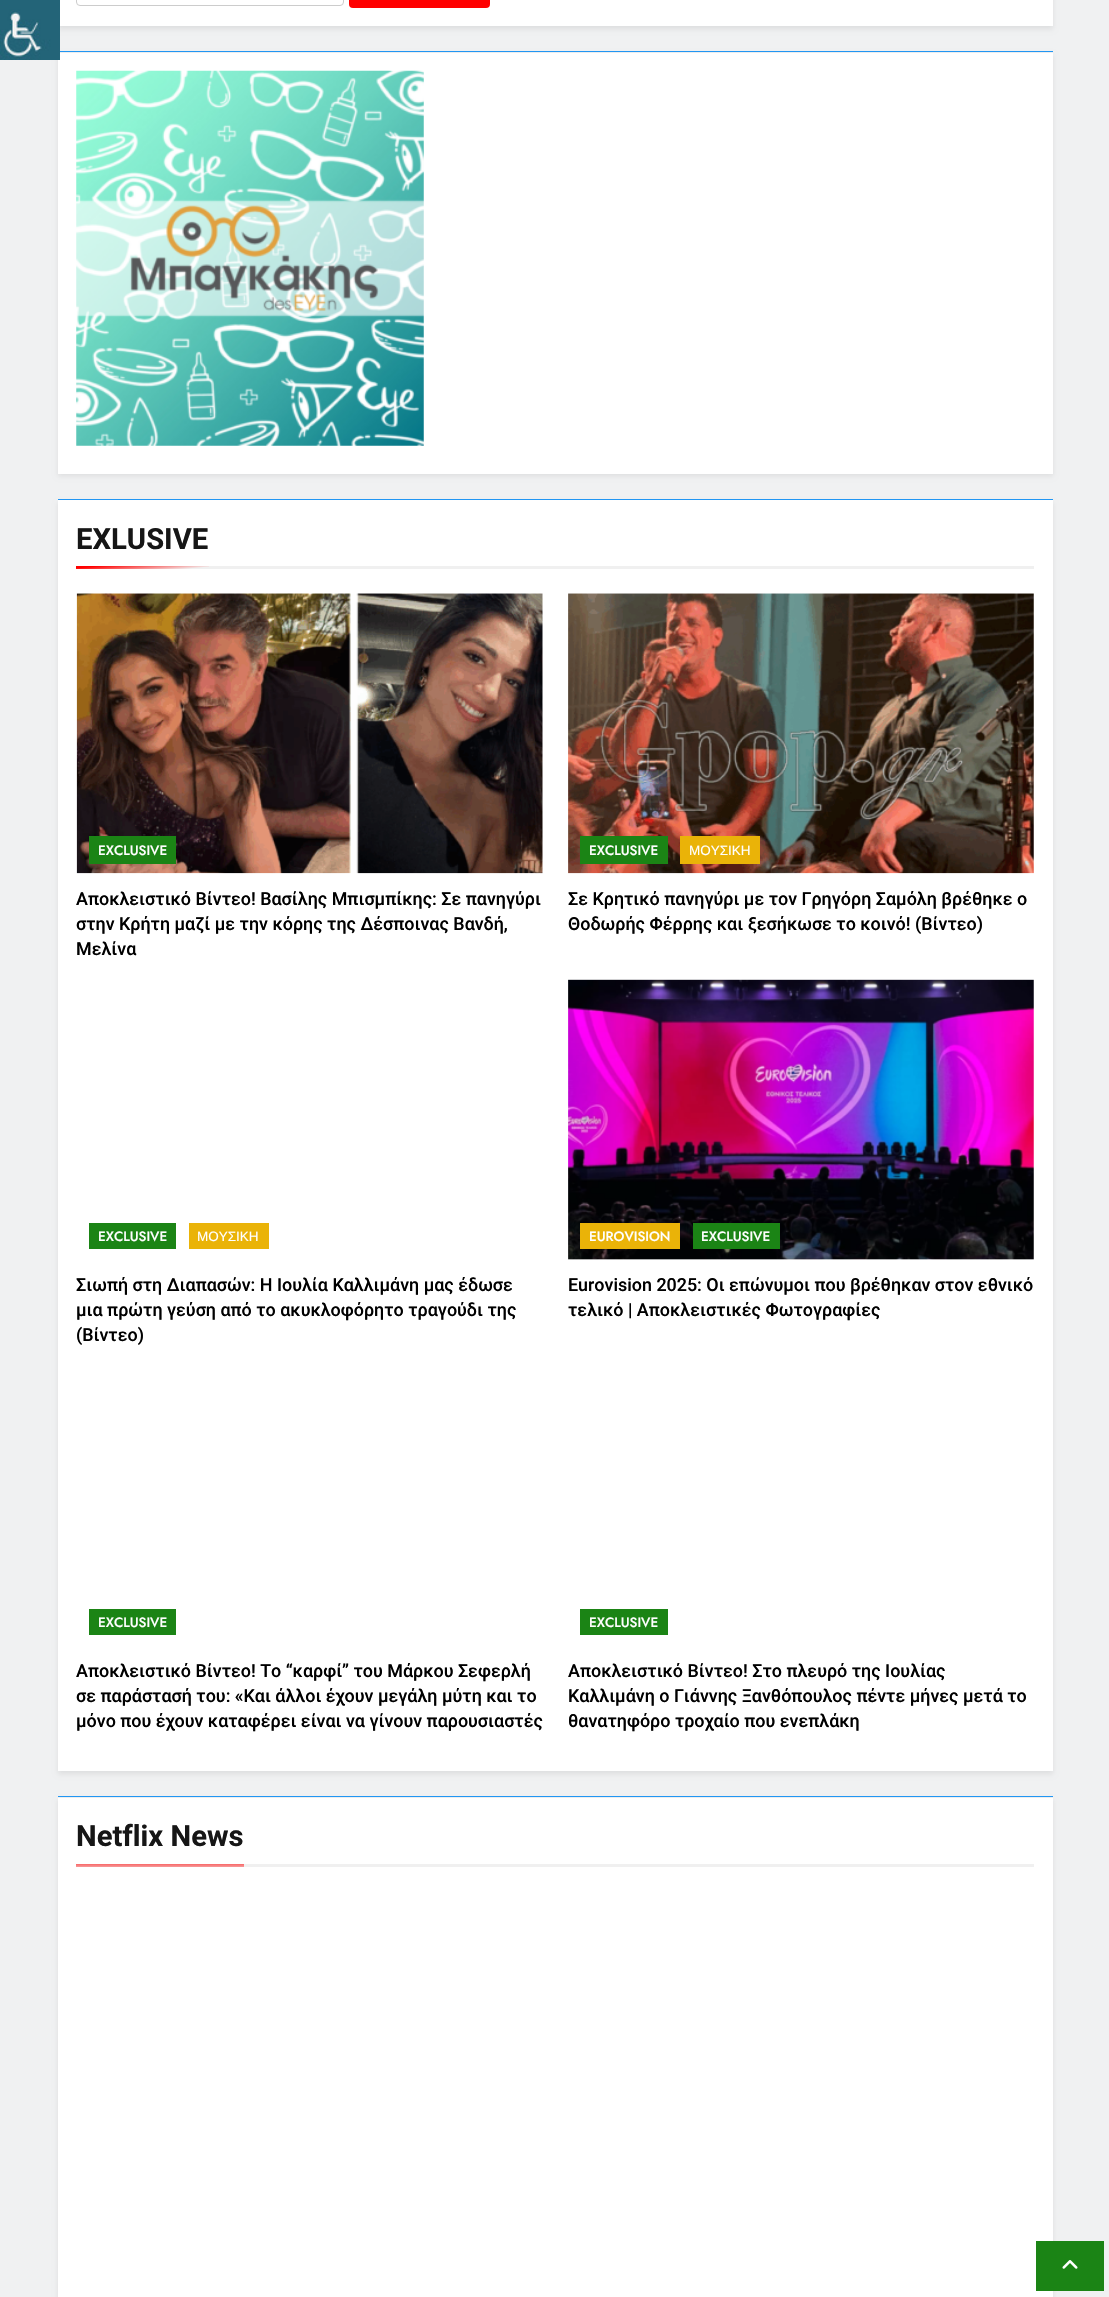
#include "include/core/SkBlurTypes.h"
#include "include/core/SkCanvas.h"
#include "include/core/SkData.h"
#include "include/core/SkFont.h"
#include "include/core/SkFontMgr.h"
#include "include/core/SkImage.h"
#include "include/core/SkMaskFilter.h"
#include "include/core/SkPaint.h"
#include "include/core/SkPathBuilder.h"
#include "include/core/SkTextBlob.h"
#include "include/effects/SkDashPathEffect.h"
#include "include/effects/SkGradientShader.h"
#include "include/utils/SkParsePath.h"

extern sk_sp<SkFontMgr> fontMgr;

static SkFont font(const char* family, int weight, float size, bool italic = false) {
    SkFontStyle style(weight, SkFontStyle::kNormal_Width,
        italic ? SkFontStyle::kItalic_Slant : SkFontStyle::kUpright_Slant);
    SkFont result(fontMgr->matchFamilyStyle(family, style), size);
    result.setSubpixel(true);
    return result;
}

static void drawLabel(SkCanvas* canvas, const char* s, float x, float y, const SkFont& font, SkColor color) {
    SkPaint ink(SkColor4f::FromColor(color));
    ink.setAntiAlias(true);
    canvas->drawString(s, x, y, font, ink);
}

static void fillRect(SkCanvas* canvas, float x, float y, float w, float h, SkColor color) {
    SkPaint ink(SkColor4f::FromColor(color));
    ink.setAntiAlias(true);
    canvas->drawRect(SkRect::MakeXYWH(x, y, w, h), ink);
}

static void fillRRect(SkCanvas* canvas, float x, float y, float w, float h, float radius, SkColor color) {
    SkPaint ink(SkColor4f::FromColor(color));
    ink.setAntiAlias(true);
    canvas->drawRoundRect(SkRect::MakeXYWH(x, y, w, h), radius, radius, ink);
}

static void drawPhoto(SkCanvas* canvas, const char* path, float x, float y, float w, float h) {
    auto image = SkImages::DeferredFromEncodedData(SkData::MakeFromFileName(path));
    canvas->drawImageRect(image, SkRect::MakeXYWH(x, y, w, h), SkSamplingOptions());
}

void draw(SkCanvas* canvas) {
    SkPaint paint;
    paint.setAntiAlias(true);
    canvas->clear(0xFFF0F1F2);
    paint.setColor(0x14000000);
    paint.setMaskFilter(SkMaskFilter::MakeBlur(kNormal_SkBlurStyle, 2.5f));
    canvas->drawRect(SkRect::MakeXYWH(58, -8, 995, 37), paint);
    paint.setMaskFilter(nullptr);
    paint.setMaskFilter(SkMaskFilter::MakeBlur(kNormal_SkBlurStyle, 2.5f));
    canvas->drawRect(SkRect::MakeXYWH(58, 55, 995, 421), paint);
    paint.setMaskFilter(nullptr);
    fillRect(canvas, 58, 53, 995, 421, 0xFFFFFFFF);
    fillRect(canvas, 58, 51, 995, 1, 0xFF2196F3);
    drawPhoto(canvas, "assets/img1.png", 0, 0, 60, 60);
    fillRect(canvas, 60, 0, 993, 26, 0xFFFFFFFF);
    paint.setStroke(true);
    paint.setStrokeWidth(1);
    paint.setColor(0xFFCCCCCC);
    canvas->drawRoundRect(SkRect::MakeXYWH(76.5f, -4.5f, 267, 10), 3.5f, 3.5f, paint);
    fillRRect(canvas, 349, -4, 141, 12, 4, 0xFFFF0000);
    drawPhoto(canvas, "assets/img2.png", 76, 70, 348, 376);
    paint.setStroke(false);
    paint.setColor(0x14000000);
    paint.setMaskFilter(SkMaskFilter::MakeBlur(kNormal_SkBlurStyle, 2.5f));
    canvas->drawRect(SkRect::MakeXYWH(58, 503, 995, 1271), paint);
    paint.setMaskFilter(nullptr);
    fillRect(canvas, 58, 500, 995, 1271, 0xFFFFFFFF);
    fillRect(canvas, 58, 499, 995, 1, 0xFF2196F3);
    fillRect(canvas, 209, 566, 825, 3, 0xFFF0F0F0);
    SkFont font1 = font("Roboto", 700, 29.25f);
    drawLabel(canvas, "EXLUSIVE", 76, 549, font1, 0xFF161616);
    {
        const SkColor colors[] = {0xFFFF0000, 0xFFF0F0F0};
        const float stops[] = {0, 1};
        const SkPoint ends[] = {{142, 562}, {143, 573}};
        paint.setShader(SkGradientShader::MakeLinear(ends, colors, stops, 2, SkTileMode::kClamp));
        paint.setAlpha(255);
    }
    canvas->drawRect(SkRect::MakeXYWH(76, 566, 133, 3), paint);
    drawPhoto(canvas, "assets/img3.png", 76, 593, 467, 281);
    fillRect(canvas, 89, 836, 87, 28, 0xFF1B8415);
    SkFont font2 = font("Jost", 500, 13.5f);
    drawLabel(canvas, "EXCLUSIVE", 98, 855, font2, 0xFFFFFFFF);
    SkFont font3 = font("Roboto", 500, 17.9f);
    drawLabel(canvas, "Αποκλειστικό Βίντεο! Βασίλης Μπισμπίκης: Σε πανηγύρι", 76, 905, font3, 0xFF000000);
    drawLabel(canvas, "στην Κρήτη μαζί με την κόρης της Δέσποινας Βανδή,", 76, 930, font3, 0xFF000000);
    drawLabel(canvas, "Μελίνα", 76, 955, font3, 0xFF000000);
    drawPhoto(canvas, "assets/img4.png", 568, 593, 466, 281);
    fillRect(canvas, 580, 836, 88, 28, 0xFF1B8415);
    drawLabel(canvas, "EXCLUSIVE", 589, 855, font2, 0xFFFFFFFF);
    fillRect(canvas, 680, 836, 80, 28, 0xFFEAB308);
    SkFont font4 = font("Liberation Sans", 400, 13.5f);
    drawLabel(canvas, "ΜΟΥΣΙΚΗ", 689, 855, font4, 0xFFFFFFFF);
    drawLabel(canvas, "Σε Κρητικό πανηγύρι με τον Γρηγόρη Σαμόλη βρέθηκε ο", 568, 905, font3, 0xFF000000);
    drawLabel(canvas, "Θοδωρής Φέρρης και ξεσήκωσε το κοινό! (Βίντεο)", 568, 930, font3, 0xFF000000);
    fillRect(canvas, 89, 1223, 87, 26, 0xFF1B8415);
    drawLabel(canvas, "EXCLUSIVE", 98, 1241, font2, 0xFFFFFFFF);
    fillRect(canvas, 189, 1223, 80, 26, 0xFFEAB308);
    drawLabel(canvas, "ΜΟΥΣΙΚΗ", 197, 1241, font4, 0xFFFFFFFF);
    drawLabel(canvas, "Σιωπή στη Διαπασών: Η Ιουλία Καλλιμάνη μας έδωσε", 76, 1291, font3, 0xFF000000);
    drawLabel(canvas, "μια πρώτη γεύση από το ακυκλοφόρητο τραγούδι της", 76, 1316, font3, 0xFF000000);
    drawLabel(canvas, "(Βίντεο)", 76, 1341, font3, 0xFF000000);
    drawPhoto(canvas, "assets/img5.png", 568, 979, 466, 281);
    fillRect(canvas, 580, 1223, 100, 26, 0xFFEAB308);
    drawLabel(canvas, "EUROVISION", 589, 1241, font2, 0xFFFFFFFF);
    fillRect(canvas, 693, 1223, 87, 26, 0xFF1B8415);
    drawLabel(canvas, "EXCLUSIVE", 701, 1241, font2, 0xFFFFFFFF);
    drawLabel(canvas, "Eurovision 2025: Οι επώνυμοι που βρέθηκαν στον εθνικό", 568, 1291, font3, 0xFF000000);
    drawLabel(canvas, "τελικό | Αποκλειστικές Φωτογραφίες", 568, 1316, font3, 0xFF000000);
    fillRect(canvas, 89, 1609, 87, 26, 0xFF1B8415);
    drawLabel(canvas, "EXCLUSIVE", 98, 1627, font2, 0xFFFFFFFF);
    drawLabel(canvas, "Αποκλειστικό Βίντεο! Το “καρφί” του Μάρκου Σεφερλή", 76, 1677, font3, 0xFF000000);
    drawLabel(canvas, "σε παράστασή του: «Και άλλοι έχουν μεγάλη μύτη και το", 76, 1702, font3, 0xFF000000);
    drawLabel(canvas, "μόνο που έχουν καταφέρει είναι να γίνουν παρουσιαστές", 76, 1727, font3, 0xFF000000);
    fillRect(canvas, 580, 1609, 88, 26, 0xFF1B8415);
    drawLabel(canvas, "EXCLUSIVE", 589, 1627, font2, 0xFFFFFFFF);
    drawLabel(canvas, "Αποκλειστικό Βίντεο! Στο πλευρό της Ιουλίας", 568, 1677, font3, 0xFF000000);
    drawLabel(canvas, "Καλλιμάνη ο Γιάννης Ξανθόπουλος πέντε μήνες μετά το", 568, 1702, font3, 0xFF000000);
    drawLabel(canvas, "θανατηφόρο τροχαίο που ενεπλάκη", 568, 1727, font3, 0xFF000000);
    paint.setShader(nullptr);
    paint.setColor(0x14000000);
    paint.setMaskFilter(SkMaskFilter::MakeBlur(kNormal_SkBlurStyle, 2.5f));
    canvas->drawRect(SkRect::MakeXYWH(58, 1800, 995, 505), paint);
    paint.setMaskFilter(nullptr);
    fillRect(canvas, 58, 1798, 995, 499, 0xFFFFFFFF);
    fillRect(canvas, 58, 1796, 995, 1, 0xFF2196F3);
    fillRect(canvas, 244, 1864, 790, 3, 0xFFF0F0F0);
    drawLabel(canvas, "Netflix News", 76, 1846, font1, 0xFF161616);
    {
        const SkColor colors[] = {0xFFFF0000, 0xFFF0F0F0};
        const float stops[] = {0, 1};
        const SkPoint ends[] = {{160, 1858}, {160, 1872}};
        paint.setShader(SkGradientShader::MakeLinear(ends, colors, stops, 2, SkTileMode::kClamp));
        paint.setAlpha(255);
    }
    canvas->drawRect(SkRect::MakeXYWH(76, 1864, 168, 3), paint);
    fillRect(canvas, 1036, 2241, 68, 50, 0xFF1B8415);
    drawPhoto(canvas, "assets/img6.png", 1062, 2260, 16, 9);
}
